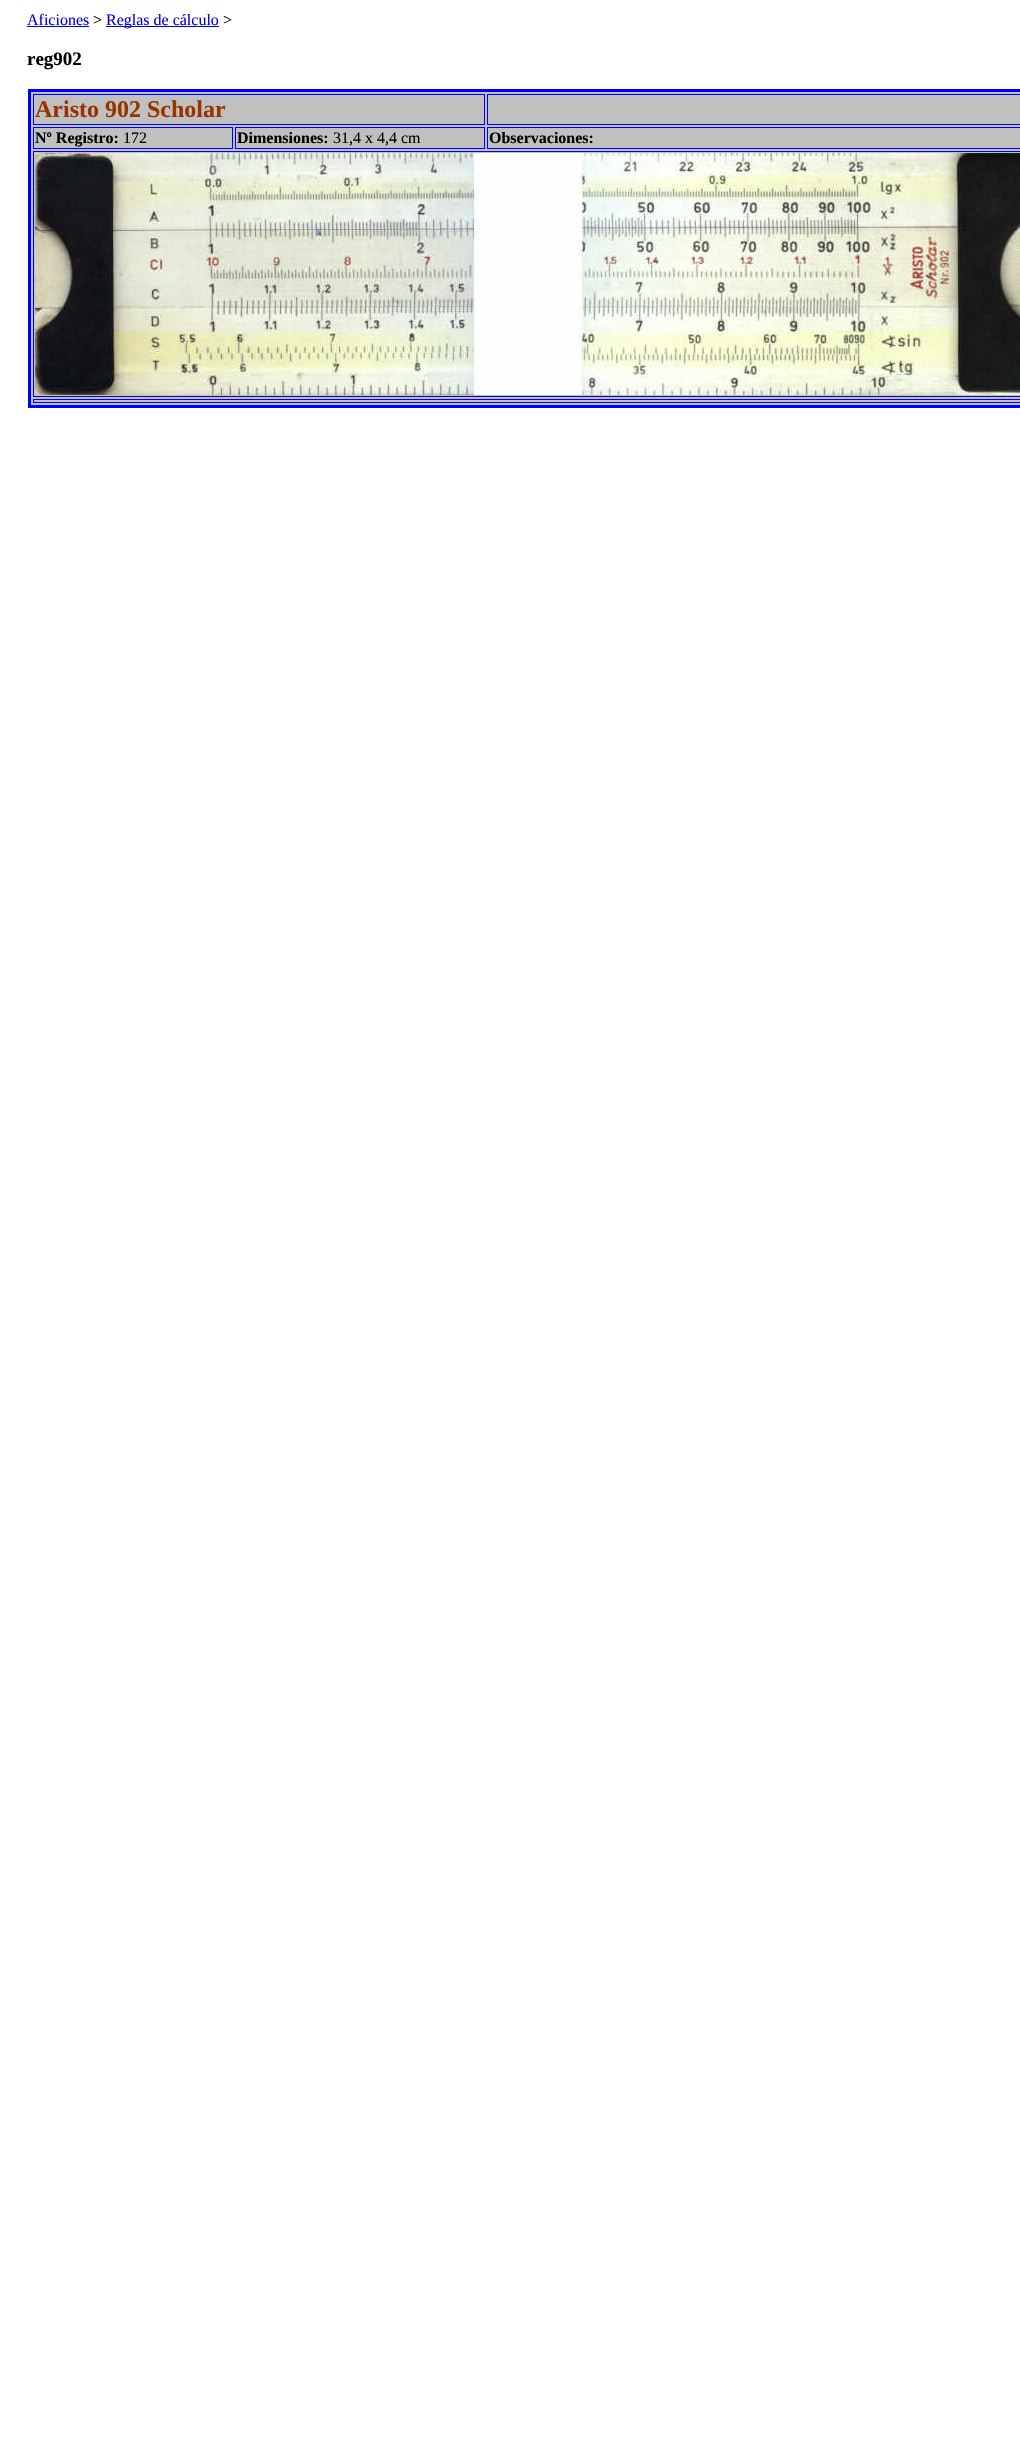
#include "include/core/SkBlurTypes.h"
#include "include/core/SkCanvas.h"
#include "include/core/SkData.h"
#include "include/core/SkFont.h"
#include "include/core/SkFontMgr.h"
#include "include/core/SkImage.h"
#include "include/core/SkMaskFilter.h"
#include "include/core/SkPaint.h"
#include "include/core/SkPathBuilder.h"
#include "include/core/SkTextBlob.h"
#include "include/effects/SkDashPathEffect.h"
#include "include/effects/SkGradientShader.h"
#include "include/utils/SkParsePath.h"

extern sk_sp<SkFontMgr> fontMgr;

static SkFont font(const char* family, int weight, float size, bool italic = false) {
    SkFontStyle style(weight, SkFontStyle::kNormal_Width,
        italic ? SkFontStyle::kItalic_Slant : SkFontStyle::kUpright_Slant);
    SkFont result(fontMgr->matchFamilyStyle(family, style), size);
    result.setSubpixel(true);
    return result;
}

static void drawLabel(SkCanvas* canvas, const char* s, float x, float y, const SkFont& font, SkColor color) {
    SkPaint ink(SkColor4f::FromColor(color));
    ink.setAntiAlias(true);
    canvas->drawString(s, x, y, font, ink);
}

static void fillRect(SkCanvas* canvas, float x, float y, float w, float h, SkColor color) {
    SkPaint ink(SkColor4f::FromColor(color));
    ink.setAntiAlias(true);
    canvas->drawRect(SkRect::MakeXYWH(x, y, w, h), ink);
}

static void drawPhoto(SkCanvas* canvas, const char* path, float x, float y, float w, float h) {
    auto image = SkImages::DeferredFromEncodedData(SkData::MakeFromFileName(path));
    canvas->drawImageRect(image, SkRect::MakeXYWH(x, y, w, h), SkSamplingOptions());
}

void draw(SkCanvas* canvas) {
    SkPaint paint;
    paint.setAntiAlias(true);
    canvas->clear(0xFFFFFFFF);
    SkFont font1 = font("Liberation Serif", 400, 16);
    drawLabel(canvas, "Aficiones", 27, 25, font1, 0xFF0000EE);
    fillRect(canvas, 27, 26, 62, 1, 0xFF0000EE);
    drawLabel(canvas, ">", 93, 25, font1, 0xFF000000);
    fillRect(canvas, 106, 26, 113, 1, 0xFF0000EE);
    drawLabel(canvas, "Reglas de cálculo", 106, 25, font1, 0xFF0000EE);
    drawLabel(canvas, ">", 223, 25, font1, 0xFF000000);
    SkFont font2 = font("Liberation Serif", 700, 19);
    drawLabel(canvas, "reg902", 27, 65, font2, 0xFF000000);
    paint.setColor(0xFFC0C0C0);
    canvas->drawRect(SkRect::MakeXYWH(29.5f, 90.5f, 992, 316), paint);
    paint.setStroke(true);
    paint.setStrokeWidth(3);
    paint.setColor(0xFF0000FF);
    canvas->drawRect(SkRect::MakeXYWH(29.5f, 90.5f, 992, 316), paint);
    paint.setStrokeWidth(1);
    canvas->drawRect(SkRect::MakeXYWH(33.5f, 94.5f, 451, 30), paint);
    SkFont font3 = font("Liberation Serif", 700, 24);
    drawLabel(canvas, "Aristo 902 Scholar", 35, 117, font3, 0xFF993300);
    canvas->drawRect(SkRect::MakeXYWH(487.5f, 94.5f, 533, 30), paint);
    canvas->drawRect(SkRect::MakeXYWH(33.5f, 127.5f, 199, 21), paint);
    SkFont font4 = font("Liberation Serif", 700, 16);
    drawLabel(canvas, "Nº Registro:", 35, 143, font4, 0xFF000000);
    drawLabel(canvas, "172", 123, 143, font1, 0xFF000000);
    canvas->drawRect(SkRect::MakeXYWH(235.5f, 127.5f, 249, 21), paint);
    drawLabel(canvas, "Dimensiones:", 237, 143, font4, 0xFF000000);
    drawLabel(canvas, "31,4 x 4,4 cm", 333, 143, font1, 0xFF000000);
    canvas->drawRect(SkRect::MakeXYWH(487.5f, 127.5f, 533, 21), paint);
    drawLabel(canvas, "Observaciones:", 489, 143, font4, 0xFF000000);
    canvas->drawRect(SkRect::MakeXYWH(33.5f, 151.5f, 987, 245), paint);
    drawPhoto(canvas, "assets/img1.png", 35, 153, 985, 242);
    canvas->drawRect(SkRect::MakeXYWH(33.5f, 399.5f, 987, 3), paint);
}
